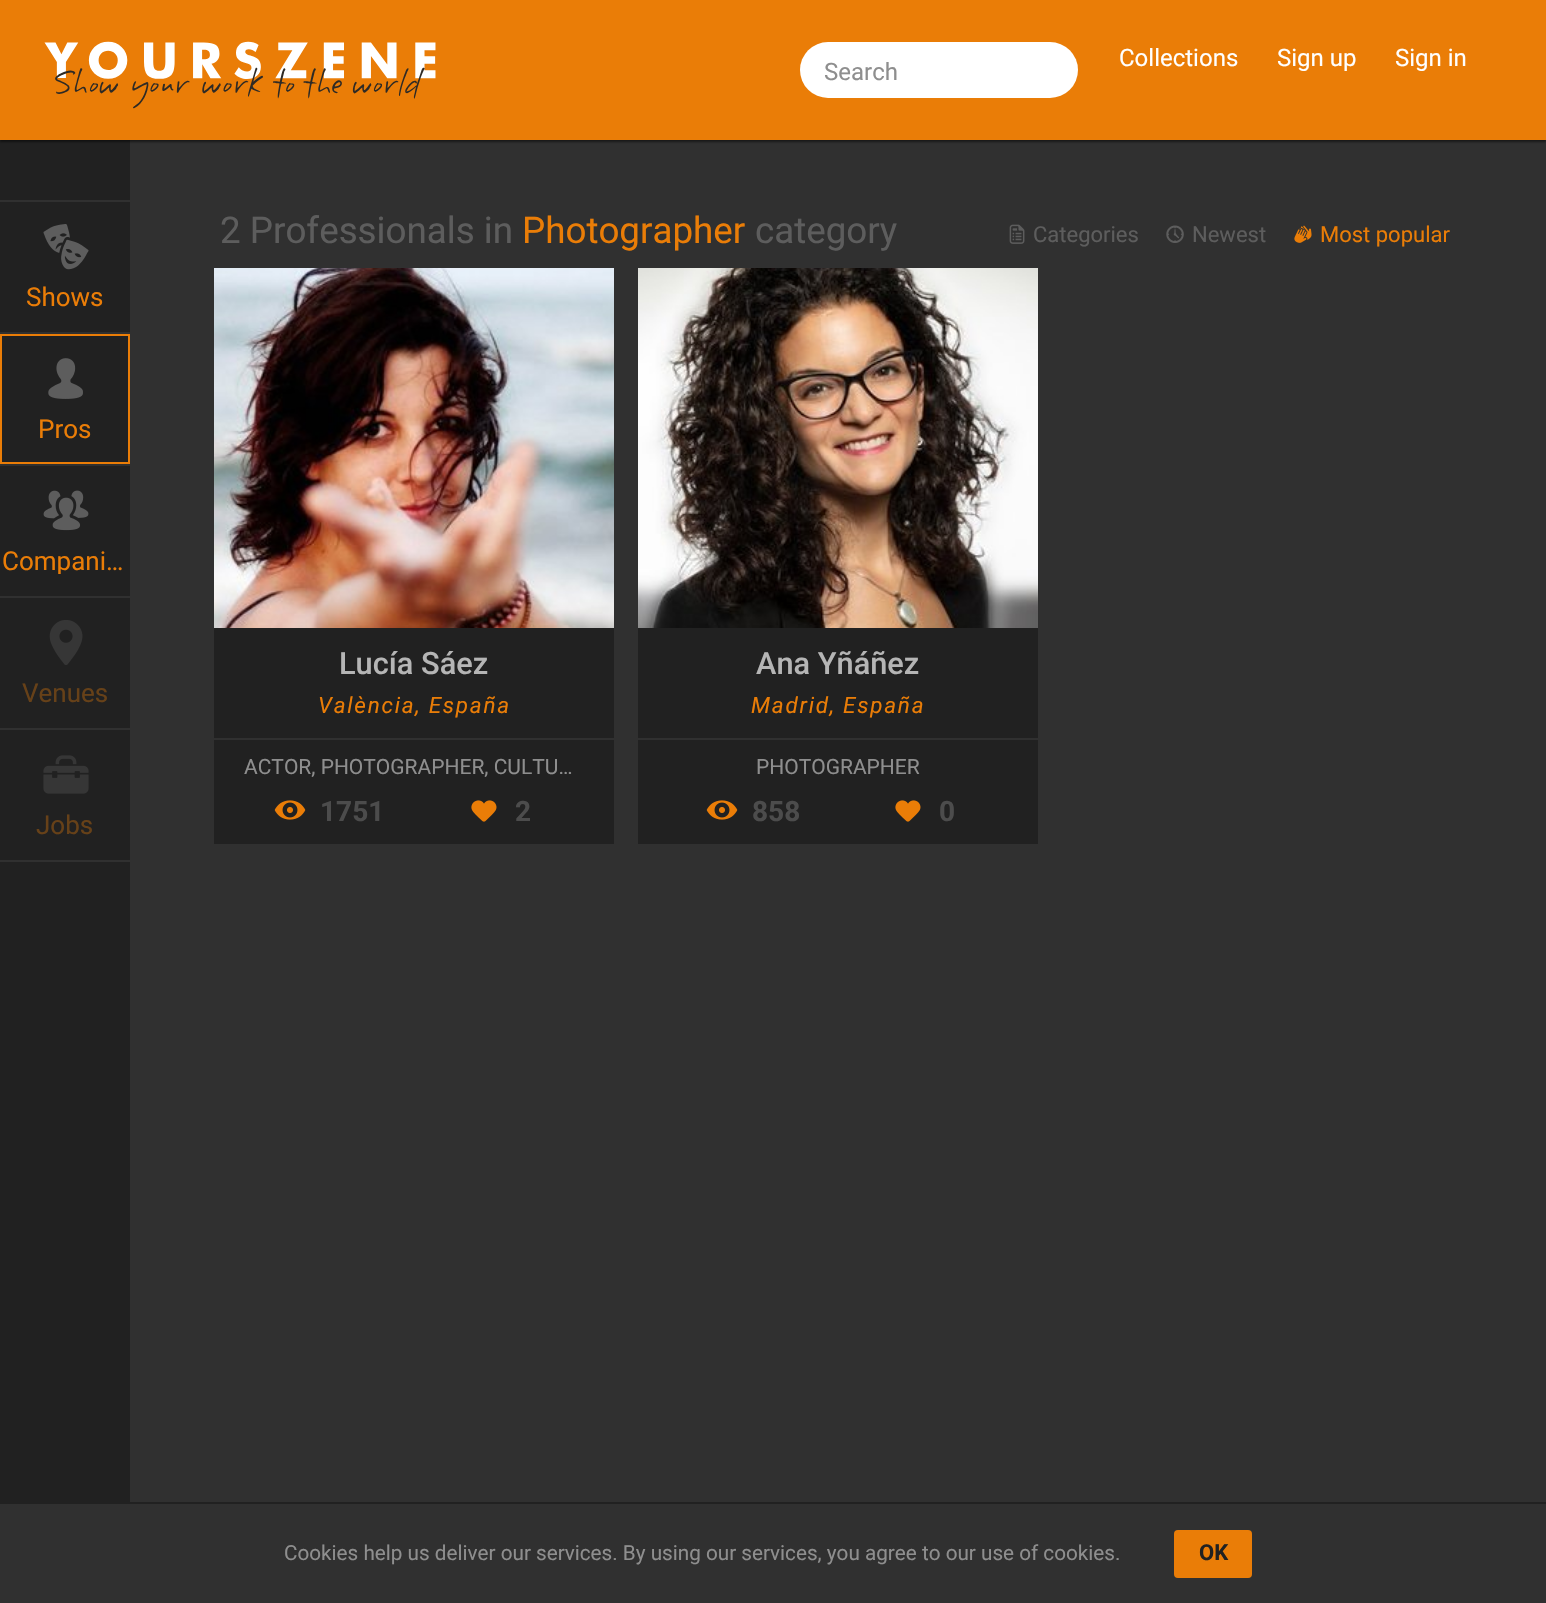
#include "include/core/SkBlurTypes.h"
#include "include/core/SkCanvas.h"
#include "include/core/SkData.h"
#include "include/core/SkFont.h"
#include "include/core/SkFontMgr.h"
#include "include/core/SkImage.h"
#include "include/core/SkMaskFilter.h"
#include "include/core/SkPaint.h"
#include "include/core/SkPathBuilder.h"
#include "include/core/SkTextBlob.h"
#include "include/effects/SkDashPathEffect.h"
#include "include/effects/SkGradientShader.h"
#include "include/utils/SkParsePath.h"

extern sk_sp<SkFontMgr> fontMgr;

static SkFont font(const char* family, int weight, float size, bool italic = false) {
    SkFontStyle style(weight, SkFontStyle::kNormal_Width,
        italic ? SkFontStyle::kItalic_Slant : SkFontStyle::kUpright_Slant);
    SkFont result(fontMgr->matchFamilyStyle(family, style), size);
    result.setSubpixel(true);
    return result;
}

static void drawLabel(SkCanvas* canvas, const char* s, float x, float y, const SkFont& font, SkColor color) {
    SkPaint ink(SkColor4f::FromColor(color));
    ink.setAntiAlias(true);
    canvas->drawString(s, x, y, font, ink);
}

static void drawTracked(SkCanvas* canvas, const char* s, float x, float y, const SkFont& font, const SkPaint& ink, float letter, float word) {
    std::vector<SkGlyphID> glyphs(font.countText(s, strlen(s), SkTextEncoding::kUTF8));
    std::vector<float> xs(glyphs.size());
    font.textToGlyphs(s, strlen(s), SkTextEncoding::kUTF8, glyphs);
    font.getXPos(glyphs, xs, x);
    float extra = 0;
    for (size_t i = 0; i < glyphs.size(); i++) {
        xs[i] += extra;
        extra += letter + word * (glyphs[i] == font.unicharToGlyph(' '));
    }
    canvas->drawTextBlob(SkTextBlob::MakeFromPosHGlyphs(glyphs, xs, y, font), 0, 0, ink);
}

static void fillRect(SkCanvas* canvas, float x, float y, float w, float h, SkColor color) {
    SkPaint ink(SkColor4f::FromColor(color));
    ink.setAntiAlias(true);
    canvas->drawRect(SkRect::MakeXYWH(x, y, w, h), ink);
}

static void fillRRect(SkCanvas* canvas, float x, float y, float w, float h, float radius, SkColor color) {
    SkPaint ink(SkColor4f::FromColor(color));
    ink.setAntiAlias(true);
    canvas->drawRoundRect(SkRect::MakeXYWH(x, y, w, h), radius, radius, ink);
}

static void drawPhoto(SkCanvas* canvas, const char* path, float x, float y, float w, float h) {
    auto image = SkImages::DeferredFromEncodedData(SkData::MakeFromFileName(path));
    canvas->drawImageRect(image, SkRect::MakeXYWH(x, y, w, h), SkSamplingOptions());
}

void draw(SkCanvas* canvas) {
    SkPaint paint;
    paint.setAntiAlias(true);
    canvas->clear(0xFF303030);
    fillRect(canvas, 0, 140, 130, 1362, 0xFF212121);
    paint.setColor(0x80000000);
    paint.setMaskFilter(SkMaskFilter::MakeBlur(kNormal_SkBlurStyle, 1));
    canvas->drawRect(SkRect::MakeXYWH(0, 2, 1546, 140), paint);
    paint.setMaskFilter(nullptr);
    fillRect(canvas, 0, 0, 1546, 140, 0xFFEA7D07);
    drawPhoto(canvas, "assets/img1.png", 44, 41, 392, 68);
    fillRRect(canvas, 800, 42, 278, 56, 28, 0xFFFFFFFF);
    SkFont font1 = font("Roboto", 400, 24);
    drawLabel(canvas, "Search", 824, 80, font1, 0xFF8E8E8E);
    drawLabel(canvas, "Collections", 1119, 66, font1, 0xFFFFFFFF);
    drawLabel(canvas, "Sign up", 1277, 66, font1, 0xFFFFFFFF);
    drawLabel(canvas, "Sign in", 1395, 66, font1, 0xFFFFFFFF);
    fillRect(canvas, 0, 200, 130, 2, 0xFF303030);
    drawPhoto(canvas, "assets/img2.png", 43, 224, 46, 46);
    SkFont font2 = font("Roboto", 400, 26);
    drawLabel(canvas, "Shows", 26, 306, font2, 0xFFEA7D07);
    fillRect(canvas, 0, 332, 130, 2, 0xFF303030);
    paint.setStroke(true);
    paint.setStrokeWidth(2);
    paint.setColor(0xFFEA7D07);
    canvas->drawRect(SkRect::MakeXYWH(1, 335, 128, 128), paint);
    drawPhoto(canvas, "assets/img3.png", 48, 358, 35, 41);
    drawLabel(canvas, "Pros", 38, 438, font2, 0xFFEA7D07);
    fillRect(canvas, 0, 464, 130, 2, 0xFF303030);
    drawPhoto(canvas, "assets/img4.png", 43, 490, 46, 41);
    canvas->save();
    canvas->clipRect(SkRect::MakeXYWH(2, 548, 126, 26));
    drawLabel(canvas, "Compani…", 2, 570, font2, 0xFFEA7D07);
    canvas->restore();
    fillRect(canvas, 0, 596, 130, 2, 0xFF303030);
    drawPhoto(canvas, "assets/img5.png", 49, 620, 34, 45);
    drawLabel(canvas, "Venues", 22, 702, font2, 0xFF674118);
    fillRect(canvas, 0, 728, 130, 2, 0xFF303030);
    drawPhoto(canvas, "assets/img6.png", 43, 755, 46, 39);
    drawLabel(canvas, "Jobs", 36, 834, font2, 0xFF674118);
    fillRect(canvas, 0, 860, 130, 2, 0xFF303030);
    SkFont font3 = font("Roboto", 400, 36.75f);
    drawLabel(canvas, "2 Professionals in", 220, 243, font3, 0xFF5D5D5D);
    drawLabel(canvas, "Photographer", 522, 243, font3, 0xFFEA7D07);
    drawLabel(canvas, "category", 755, 243, font3, 0xFF5D5D5D);
    drawPhoto(canvas, "assets/img7.png", 1009, 224, 16, 20);
    SkFont font4 = font("Roboto", 400, 22);
    drawLabel(canvas, "Categories", 1033, 242, font4, 0xFF5D5D5D);
    drawPhoto(canvas, "assets/img8.png", 1166, 225, 18, 18);
    drawLabel(canvas, "Newest", 1192, 242, font4, 0xFF5D5D5D);
    drawPhoto(canvas, "assets/img9.png", 1294, 225, 18, 18);
    drawLabel(canvas, "Most popular", 1320, 242, font4, 0xFFEA7D07);
    fillRect(canvas, 214, 628, 400, 216, 0xFF212121);
    drawPhoto(canvas, "assets/img10.png", 214, 268, 400, 360);
    SkFont font5 = font("Roboto", 500, 30.75f);
    drawLabel(canvas, "Lucía Sáez", 339, 674, font5, 0xFFB5B5B5);
    SkFont font6 = font("Roboto", 400, 22.5f, true);
    paint.setStroke(false);
    drawTracked(canvas, "València, España", 318, 713, font6, paint, 1.75f, 0);
    fillRect(canvas, 214, 738, 400, 2, 0xFF303030);
    SkFont font7 = font("Roboto", 400, 21);
    drawLabel(canvas, "ACTOR, PHOTOGRAPHER, CULTU…", 244, 774, font7, 0xFF8E8E8E);
    drawPhoto(canvas, "assets/img11.png", 274, 800, 32, 20);
    SkFont font8 = font("Roboto", 700, 28);
    drawLabel(canvas, "1751", 320, 821, font8, 0xFF4C4C4C);
    drawPhoto(canvas, "assets/img12.png", 471, 800, 26, 22);
    drawLabel(canvas, "2", 515, 821, font8, 0xFF4C4C4C);
    fillRect(canvas, 638, 628, 400, 216, 0xFF212121);
    drawPhoto(canvas, "assets/img13.png", 638, 268, 400, 360);
    drawLabel(canvas, "Ana Yñáñez", 756, 674, font5, 0xFFB5B5B5);
    drawTracked(canvas, "Madrid, España", 751, 713, font6, paint, 1.75f, 0);
    fillRect(canvas, 638, 738, 400, 2, 0xFF303030);
    drawLabel(canvas, "PHOTOGRAPHER", 756, 774, font7, 0xFF8E8E8E);
    drawPhoto(canvas, "assets/img11.png", 706, 800, 32, 20);
    drawLabel(canvas, "858", 752, 821, font8, 0xFF4C4C4C);
    drawPhoto(canvas, "assets/img12.png", 895, 800, 26, 22);
    drawLabel(canvas, "0", 939, 821, font8, 0xFF4C4C4C);
    fillRect(canvas, 0, 1502, 1546, 2, 0xFF212121);
    SkFont font9 = font("Roboto", 400, 20.7f);
    drawLabel(canvas, "Cookies help us deliver our services. By using our services, you agree to our use of cookies.", 284, 1560, font9, 0xFF8E8E8E);
    fillRRect(canvas, 1174, 1530, 78, 48, 4, 0xFFEA7D07);
    SkFont font10 = font("Roboto", 700, 22);
    drawLabel(canvas, "OK", 1199, 1560, font10, 0xFF212121);
}
